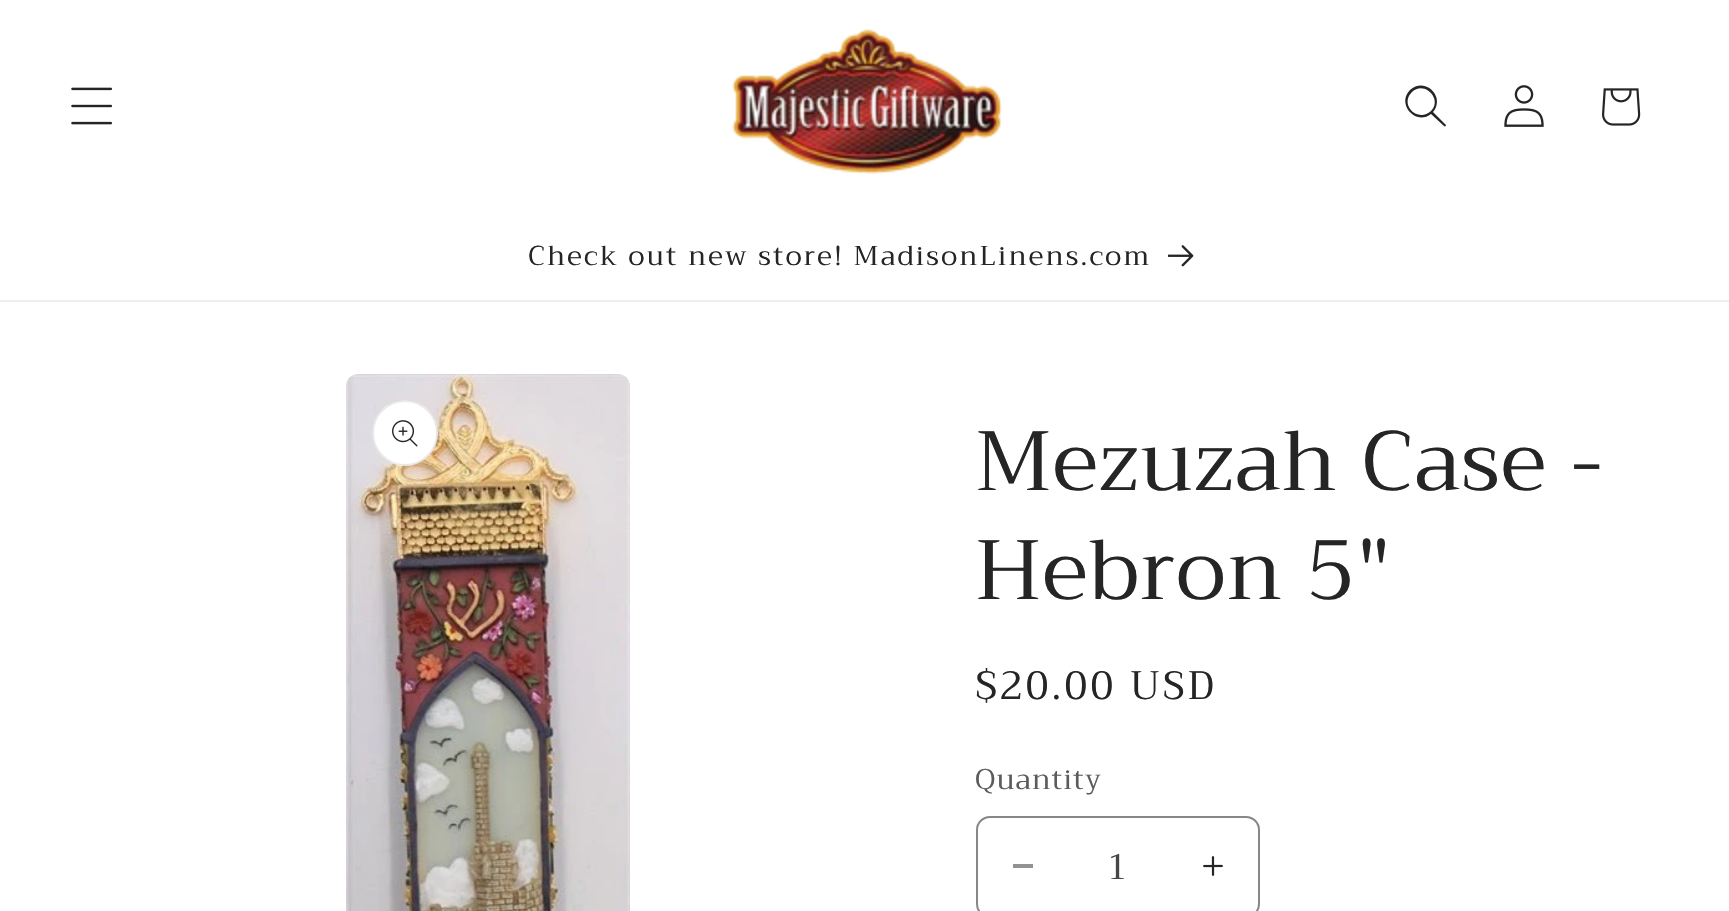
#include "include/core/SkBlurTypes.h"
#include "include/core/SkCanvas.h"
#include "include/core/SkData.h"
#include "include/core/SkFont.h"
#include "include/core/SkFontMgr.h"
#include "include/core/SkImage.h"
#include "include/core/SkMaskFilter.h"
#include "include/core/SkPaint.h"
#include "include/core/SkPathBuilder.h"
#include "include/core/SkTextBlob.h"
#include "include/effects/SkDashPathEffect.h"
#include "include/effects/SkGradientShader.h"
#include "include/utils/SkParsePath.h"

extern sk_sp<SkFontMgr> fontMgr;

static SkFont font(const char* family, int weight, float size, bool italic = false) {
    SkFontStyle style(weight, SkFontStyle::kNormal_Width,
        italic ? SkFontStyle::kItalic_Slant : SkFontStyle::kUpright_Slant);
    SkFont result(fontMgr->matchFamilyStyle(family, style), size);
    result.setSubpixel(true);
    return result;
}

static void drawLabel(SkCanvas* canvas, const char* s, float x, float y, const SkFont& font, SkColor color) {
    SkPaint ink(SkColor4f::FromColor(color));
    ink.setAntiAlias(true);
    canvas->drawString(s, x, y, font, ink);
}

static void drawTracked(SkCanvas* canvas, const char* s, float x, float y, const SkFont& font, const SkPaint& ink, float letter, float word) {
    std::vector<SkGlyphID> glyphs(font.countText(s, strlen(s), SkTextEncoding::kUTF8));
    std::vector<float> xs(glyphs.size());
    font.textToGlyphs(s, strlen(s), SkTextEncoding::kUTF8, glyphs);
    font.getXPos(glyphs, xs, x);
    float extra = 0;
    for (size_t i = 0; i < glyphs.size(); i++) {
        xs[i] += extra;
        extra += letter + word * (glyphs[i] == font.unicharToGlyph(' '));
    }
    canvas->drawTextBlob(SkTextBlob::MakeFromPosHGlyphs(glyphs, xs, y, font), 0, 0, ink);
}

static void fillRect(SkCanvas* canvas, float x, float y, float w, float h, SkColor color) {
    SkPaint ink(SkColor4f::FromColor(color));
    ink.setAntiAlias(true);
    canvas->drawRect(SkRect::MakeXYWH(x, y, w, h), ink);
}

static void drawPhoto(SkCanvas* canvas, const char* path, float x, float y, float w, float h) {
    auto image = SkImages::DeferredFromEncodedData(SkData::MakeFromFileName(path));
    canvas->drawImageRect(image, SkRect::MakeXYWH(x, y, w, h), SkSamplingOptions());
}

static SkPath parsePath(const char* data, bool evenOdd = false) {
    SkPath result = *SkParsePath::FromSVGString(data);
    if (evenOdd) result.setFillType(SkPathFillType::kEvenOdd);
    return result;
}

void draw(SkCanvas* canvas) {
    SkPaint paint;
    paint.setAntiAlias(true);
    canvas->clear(0xFFFFFFFF);
    drawPhoto(canvas, "assets/img1.png", 71, 87, 41, 38);
    drawPhoto(canvas, "assets/img2.png", 731, 29, 271, 146);
    paint.setColor(0xFF252525);
    canvas->drawPath(parsePath("M1431 111C1418 123 1399 105 1412 92C1424 80 1443 99 1431 111M1431 114C1416 126 1396 104 1410 90C1425 76 1446 97 1433 112L1446 125C1446 126 1445 127 1444 126Z", true), paint);
    drawPhoto(canvas, "assets/img3.png", 1504, 85, 40, 42);
    drawPhoto(canvas, "assets/img4.png", 1602, 88, 39, 38);
    fillRect(canvas, 0, 300, 1729, 2, 0xFFEEEEEE);
    SkFont font1 = font("Trirong", 400, 27.3f);
    drawTracked(canvas, "Check out new store! MadisonLinens.com", 528, 265, font1, paint, 2.2f, 0);
    drawPhoto(canvas, "assets/img5.png", 1168, 245, 26, 22);
    drawPhoto(canvas, "assets/img6.png", 346, 374, 284, 537);
    paint.setColor(0xFFFFFFFF);
    canvas->drawCircle(405, 433, 33, paint);
    paint.setStroke(true);
    paint.setStrokeWidth(2);
    paint.setColor(0x1A252525);
    canvas->drawCircle(405, 433, 32, paint);
    drawPhoto(canvas, "assets/img7.png", 392, 420, 26, 27);
    SkFont font2 = font("Trirong", 400, 84);
    paint.setStroke(false);
    paint.setColor(0xFF252525);
    drawTracked(canvas, "Mezuzah Case -", 975, 490, font2, paint, 1.25f, 0);
    drawTracked(canvas, "Hebron 5\"", 975, 599, font2, paint, 1.25f, 0);
    SkFont font3 = font("Trirong", 400, 39.5f);
    drawTracked(canvas, "$20.00 USD", 975, 699, font3, paint, 2.9f, 0);
    SkFont font4 = font("Trirong", 400, 28.5f);
    paint.setColor(0xFF5C5C5C);
    drawTracked(canvas, "Quantity", 975, 789, font4, paint, 1, 0);
    fillRect(canvas, 1013, 864, 20, 4, 0xFF929292);
    drawPhoto(canvas, "assets/img8.png", 1203, 856, 20, 20);
    paint.setStroke(true);
    paint.setColor(0xFF878787);
    canvas->drawRoundRect(SkRect::MakeXYWH(977, 817, 282, 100), 13, 13, paint);
    SkFont font5 = font("Trirong", 400, 35);
    drawLabel(canvas, "1", 1107, 879, font5, 0xFF464646);
}
